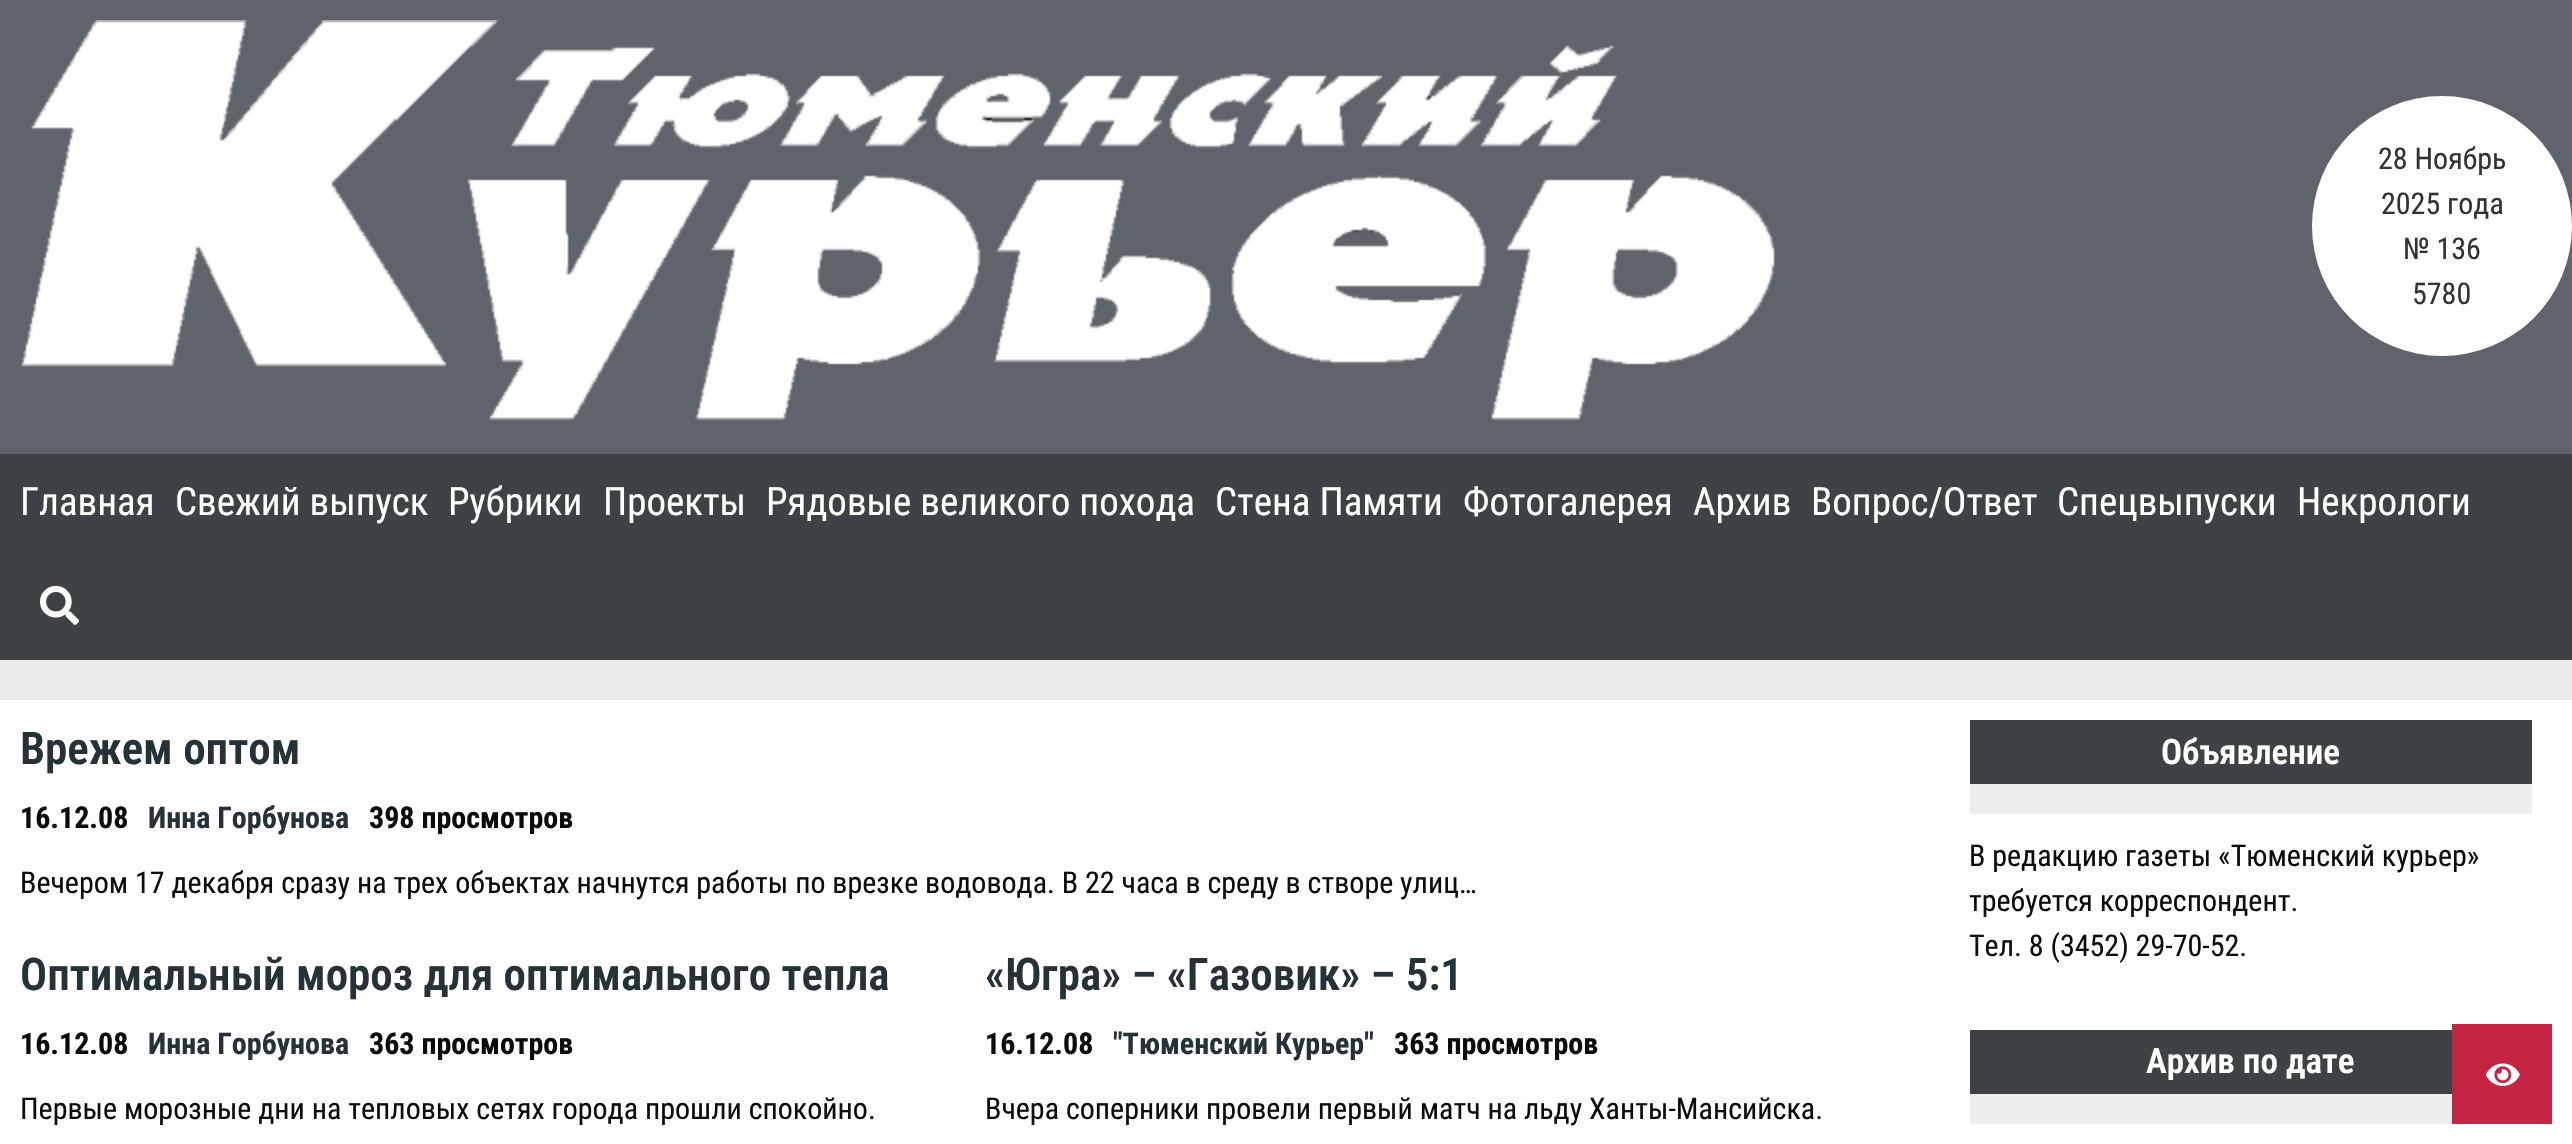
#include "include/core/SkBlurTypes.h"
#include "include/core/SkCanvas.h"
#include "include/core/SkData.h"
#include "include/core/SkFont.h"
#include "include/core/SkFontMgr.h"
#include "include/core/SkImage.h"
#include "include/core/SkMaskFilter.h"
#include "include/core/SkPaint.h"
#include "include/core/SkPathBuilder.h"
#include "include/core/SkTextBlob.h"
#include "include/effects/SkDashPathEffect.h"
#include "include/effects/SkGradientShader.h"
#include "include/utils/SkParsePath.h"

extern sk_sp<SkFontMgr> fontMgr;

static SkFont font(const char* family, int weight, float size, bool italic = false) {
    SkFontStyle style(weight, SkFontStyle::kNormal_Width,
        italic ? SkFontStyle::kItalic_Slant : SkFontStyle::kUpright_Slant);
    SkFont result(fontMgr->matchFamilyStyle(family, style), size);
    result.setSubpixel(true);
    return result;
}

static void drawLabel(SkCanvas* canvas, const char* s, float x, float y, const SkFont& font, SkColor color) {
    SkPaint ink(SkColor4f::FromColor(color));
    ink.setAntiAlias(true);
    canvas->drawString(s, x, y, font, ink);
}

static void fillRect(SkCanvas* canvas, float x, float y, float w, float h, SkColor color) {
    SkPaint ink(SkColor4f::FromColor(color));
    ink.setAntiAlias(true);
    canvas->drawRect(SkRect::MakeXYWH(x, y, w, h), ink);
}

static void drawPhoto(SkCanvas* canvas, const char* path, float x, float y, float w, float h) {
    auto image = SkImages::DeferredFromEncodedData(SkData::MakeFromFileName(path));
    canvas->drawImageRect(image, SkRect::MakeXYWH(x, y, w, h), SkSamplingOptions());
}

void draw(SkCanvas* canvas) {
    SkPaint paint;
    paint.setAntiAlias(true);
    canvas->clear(0xFFEAEAEA);
    fillRect(canvas, 0, 454, 2572, 206, 0xFF3D4244);
    fillRect(canvas, 0, 0, 2572, 454, 0xFF5E6469);
    drawPhoto(canvas, "assets/img1.png", 21, 20, 1754, 400);
    paint.setColor(0xFFFFFFFF);
    canvas->drawCircle(2442, 226, 130, paint);
    SkFont font1 = font("Roboto Condensed", 400, 30);
    drawLabel(canvas, "28 Ноябрь", 2378, 169, font1, 0xFF333333);
    drawLabel(canvas, "2025 года", 2381, 214, font1, 0xFF333333);
    drawLabel(canvas, "№ 136", 2403, 259, font1, 0xFF333333);
    drawLabel(canvas, "5780", 2412, 304, font1, 0xFF333333);
    SkFont font2 = font("Roboto Condensed", 400, 39);
    drawLabel(canvas, "Главная", 20, 515, font2, 0xFFFFFFFF);
    drawLabel(canvas, "Свежий выпуск", 175, 515, font2, 0xFFFFFFFF);
    drawLabel(canvas, "Рубрики", 448, 515, font2, 0xFFFFFFFF);
    drawLabel(canvas, "Проекты", 603, 515, font2, 0xFFFFFFFF);
    drawLabel(canvas, "Рядовые великого похода", 766, 515, font2, 0xFFFFFFFF);
    drawLabel(canvas, "Стена Памяти", 1215, 515, font2, 0xFFFFFFFF);
    drawLabel(canvas, "Фотогалерея", 1463, 515, font2, 0xFFFFFFFF);
    drawLabel(canvas, "Архив", 1693, 515, font2, 0xFFFFFFFF);
    drawLabel(canvas, "Вопрос/Ответ", 1811, 515, font2, 0xFFFFFFFF);
    drawLabel(canvas, "Спецвыпуски", 2057, 515, font2, 0xFFFFFFFF);
    drawLabel(canvas, "Некрологи", 2297, 515, font2, 0xFFFFFFFF);
    drawPhoto(canvas, "assets/img2.png", 40, 585, 39, 40);
    fillRect(canvas, 0, 700, 2572, 444, 0xFFFFFFFF);
    SkFont font3 = font("Roboto Condensed", 600, 45);
    drawLabel(canvas, "Врежем оптом", 20, 764, font3, 0xFF253237);
    SkFont font4 = font("Roboto Condensed", 700, 30);
    drawLabel(canvas, "16.12.08", 20, 828, font4, 0xFF0C0C0C);
    drawLabel(canvas, "Инна Горбунова", 148, 828, font4, 0xFF253237);
    drawLabel(canvas, "398 просмотров", 369, 828, font4, 0xFF0C0C0C);
    drawLabel(canvas, "Вечером 17 декабря сразу на трех объектах начнутся работы по врезке водовода. В 22 часа в среду в створе улиц…", 20, 893, font1, 0xFF0C0C0C);
    drawLabel(canvas, "Оптимальный мороз для оптимального тепла", 20, 990, font3, 0xFF253237);
    drawLabel(canvas, "16.12.08", 20, 1054, font4, 0xFF0C0C0C);
    drawLabel(canvas, "Инна Горбунова", 148, 1054, font4, 0xFF253237);
    drawLabel(canvas, "363 просмотров", 369, 1054, font4, 0xFF0C0C0C);
    drawLabel(canvas, "Первые морозные дни на тепловых сетях города прошли спокойно.", 20, 1119, font1, 0xFF0C0C0C);
    drawLabel(canvas, "«Югра» – «Газовик» – 5:1", 985, 990, font3, 0xFF253237);
    drawLabel(canvas, "16.12.08", 985, 1054, font4, 0xFF0C0C0C);
    drawLabel(canvas, "\"Тюменский Курьер\"", 1113, 1054, font4, 0xFF253237);
    drawLabel(canvas, "363 просмотров", 1394, 1054, font4, 0xFF0C0C0C);
    drawLabel(canvas, "Вчера соперники провели первый матч на льду Ханты-Мансийска.", 985, 1119, font1, 0xFF0C0C0C);
    fillRect(canvas, 1970, 720, 562, 64, 0xFF3D4244);
    fillRect(canvas, 1970, 784, 562, 30, 0xFFEEEEEE);
    SkFont font5 = font("Roboto Condensed", 600, 35);
    drawLabel(canvas, "Объявление", 2161, 764, font5, 0xFFFFFFFF);
    drawLabel(canvas, "В редакцию газеты «Тюменский курьер»", 1969, 866, font1, 0xFF0C0C0C);
    drawLabel(canvas, "требуется корреспондент.", 1969, 911, font1, 0xFF0C0C0C);
    drawLabel(canvas, "Тел. 8 (3452) 29-70-52.", 1969, 956, font1, 0xFF0C0C0C);
    fillRect(canvas, 1970, 1030, 482, 64, 0xFF3D4244);
    fillRect(canvas, 1970, 1094, 482, 30, 0xFFEEEEEE);
    drawLabel(canvas, "Архив по дате", 2146, 1073, font5, 0xFFFFFFFF);
    fillRect(canvas, 2452, 1024, 100, 100, 0xFFC52443);
    drawPhoto(canvas, "assets/img3.png", 2486, 1063, 34, 23);
}
